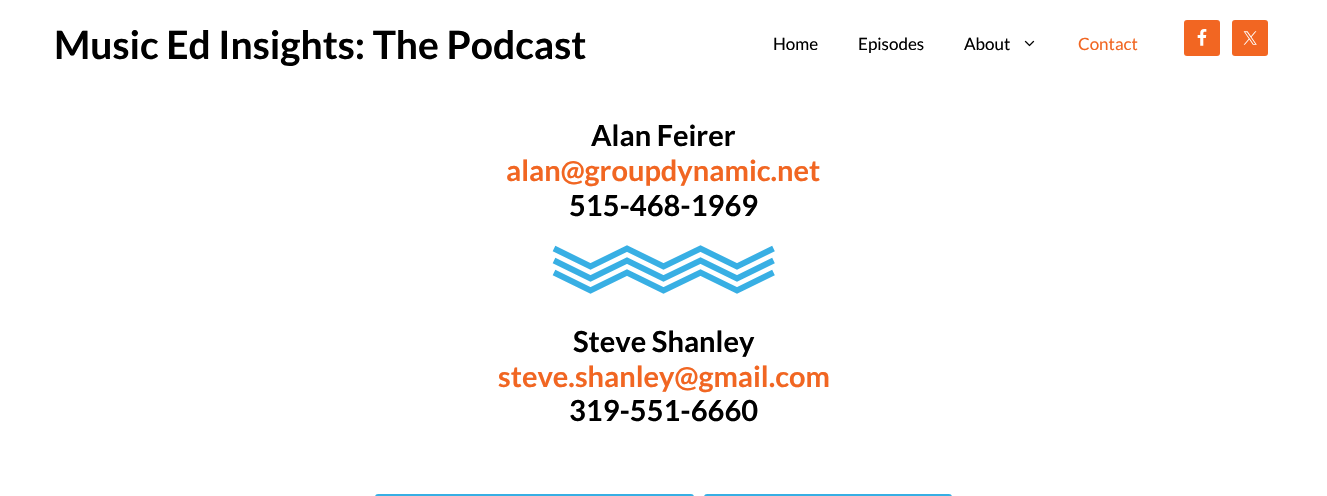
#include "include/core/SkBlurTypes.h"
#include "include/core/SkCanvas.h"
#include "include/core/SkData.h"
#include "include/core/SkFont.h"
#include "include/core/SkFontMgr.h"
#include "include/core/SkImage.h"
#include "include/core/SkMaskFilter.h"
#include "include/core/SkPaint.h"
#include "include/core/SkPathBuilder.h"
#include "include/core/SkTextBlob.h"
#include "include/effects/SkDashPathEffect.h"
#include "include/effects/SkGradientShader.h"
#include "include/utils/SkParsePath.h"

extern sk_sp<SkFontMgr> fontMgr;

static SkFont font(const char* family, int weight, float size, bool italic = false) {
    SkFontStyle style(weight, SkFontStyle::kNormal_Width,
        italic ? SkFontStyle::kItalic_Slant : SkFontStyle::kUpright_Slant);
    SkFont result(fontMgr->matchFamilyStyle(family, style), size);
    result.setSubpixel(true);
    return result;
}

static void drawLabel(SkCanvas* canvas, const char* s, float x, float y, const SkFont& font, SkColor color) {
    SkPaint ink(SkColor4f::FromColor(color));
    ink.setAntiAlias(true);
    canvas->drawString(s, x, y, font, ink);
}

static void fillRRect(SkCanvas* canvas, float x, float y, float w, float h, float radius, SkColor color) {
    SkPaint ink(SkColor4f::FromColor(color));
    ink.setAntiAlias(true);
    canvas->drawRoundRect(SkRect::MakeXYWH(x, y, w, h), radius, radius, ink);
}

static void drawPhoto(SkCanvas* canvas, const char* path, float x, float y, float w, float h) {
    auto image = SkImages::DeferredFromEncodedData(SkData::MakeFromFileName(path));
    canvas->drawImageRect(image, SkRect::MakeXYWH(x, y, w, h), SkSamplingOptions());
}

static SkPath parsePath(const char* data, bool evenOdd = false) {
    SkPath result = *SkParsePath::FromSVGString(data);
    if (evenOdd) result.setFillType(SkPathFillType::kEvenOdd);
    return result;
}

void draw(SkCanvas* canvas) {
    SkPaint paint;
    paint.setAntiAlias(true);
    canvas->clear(0xFFFFFFFF);
    SkFont font1 = font("Lato", 700, 39);
    drawLabel(canvas, "Music Ed Insights: The Podcast", 54, 59, font1, 0xFF000000);
    SkFont font2 = font("Lato", 400, 17);
    drawLabel(canvas, "Home", 773, 50, font2, 0xFF000000);
    drawLabel(canvas, "Episodes", 858, 50, font2, 0xFF000000);
    drawLabel(canvas, "About", 964, 50, font2, 0xFF000000);
    drawPhoto(canvas, "assets/img1.png", 1024, 40, 11, 7);
    drawLabel(canvas, "Contact", 1078, 50, font2, 0xFFF16622);
    fillRRect(canvas, 1184, 20, 36, 36, 3, 0xFFF26622);
    drawPhoto(canvas, "assets/img2.png", 1197, 29, 10, 17);
    fillRRect(canvas, 1232, 20, 36, 36, 3, 0xFFF26622);
    drawPhoto(canvas, "assets/img3.png", 1243, 31, 14, 14);
    SkFont font3 = font("Lato", 700, 29);
    drawLabel(canvas, "Alan Feirer", 591, 146, font3, 0xFF000000);
    drawLabel(canvas, "alan@groupdynamic.net", 506, 181, font3, 0xFFF16622);
    drawLabel(canvas, "515-468-1969", 569, 216, font3, 0xFF000000);
    paint.setStroke(true);
    paint.setStrokeWidth(6);
    paint.setColor(0xFF38AFE4);
    canvas->drawPath(parsePath("M554 248.5L590.5 266.5L627 248.5L663.5 266.5L700.5 248.5L737 266.5L773.5 248.5"), paint);
    canvas->drawPath(parsePath("M554 260.5L590.5 278.5L627 260.5L663.5 278.5L700.5 260.5L737 278.5L773.5 260.5"), paint);
    canvas->drawPath(parsePath("M554 272.5L590.5 290.5L627 272.5L663.5 290.5L700.5 272.5L737 290.5L773.5 272.5"), paint);
    drawLabel(canvas, "Steve Shanley", 573, 352, font3, 0xFF000000);
    drawLabel(canvas, "steve.shanley@gmail.com", 498, 387, font3, 0xFFF16622);
    drawLabel(canvas, "319-551-6660", 569, 421, font3, 0xFF000000);
    paint.setStrokeWidth(3);
    paint.setColor(0xFF37AFE4);
    canvas->drawRoundRect(SkRect::MakeXYWH(376.5f, 495.5f, 316, 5), 1.5f, 1.5f, paint);
    canvas->drawRoundRect(SkRect::MakeXYWH(705.5f, 495.5f, 245, 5), 1.5f, 1.5f, paint);
}
